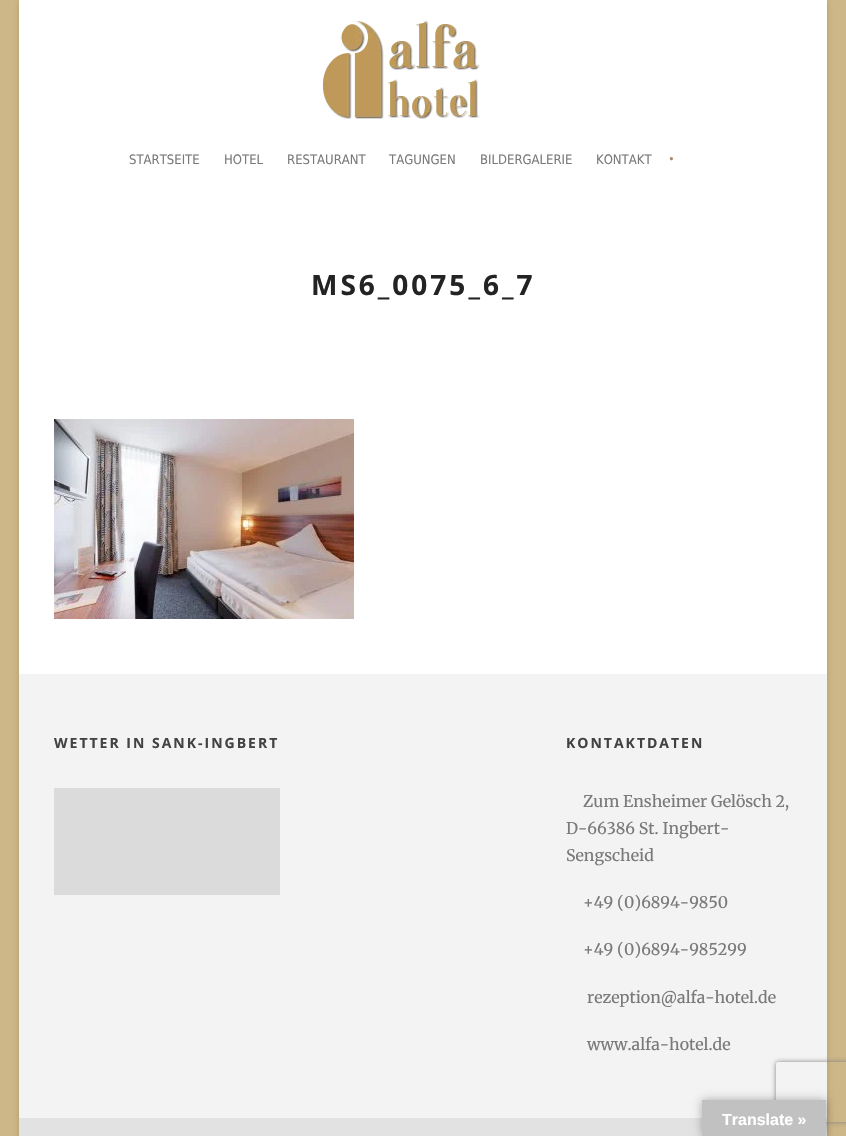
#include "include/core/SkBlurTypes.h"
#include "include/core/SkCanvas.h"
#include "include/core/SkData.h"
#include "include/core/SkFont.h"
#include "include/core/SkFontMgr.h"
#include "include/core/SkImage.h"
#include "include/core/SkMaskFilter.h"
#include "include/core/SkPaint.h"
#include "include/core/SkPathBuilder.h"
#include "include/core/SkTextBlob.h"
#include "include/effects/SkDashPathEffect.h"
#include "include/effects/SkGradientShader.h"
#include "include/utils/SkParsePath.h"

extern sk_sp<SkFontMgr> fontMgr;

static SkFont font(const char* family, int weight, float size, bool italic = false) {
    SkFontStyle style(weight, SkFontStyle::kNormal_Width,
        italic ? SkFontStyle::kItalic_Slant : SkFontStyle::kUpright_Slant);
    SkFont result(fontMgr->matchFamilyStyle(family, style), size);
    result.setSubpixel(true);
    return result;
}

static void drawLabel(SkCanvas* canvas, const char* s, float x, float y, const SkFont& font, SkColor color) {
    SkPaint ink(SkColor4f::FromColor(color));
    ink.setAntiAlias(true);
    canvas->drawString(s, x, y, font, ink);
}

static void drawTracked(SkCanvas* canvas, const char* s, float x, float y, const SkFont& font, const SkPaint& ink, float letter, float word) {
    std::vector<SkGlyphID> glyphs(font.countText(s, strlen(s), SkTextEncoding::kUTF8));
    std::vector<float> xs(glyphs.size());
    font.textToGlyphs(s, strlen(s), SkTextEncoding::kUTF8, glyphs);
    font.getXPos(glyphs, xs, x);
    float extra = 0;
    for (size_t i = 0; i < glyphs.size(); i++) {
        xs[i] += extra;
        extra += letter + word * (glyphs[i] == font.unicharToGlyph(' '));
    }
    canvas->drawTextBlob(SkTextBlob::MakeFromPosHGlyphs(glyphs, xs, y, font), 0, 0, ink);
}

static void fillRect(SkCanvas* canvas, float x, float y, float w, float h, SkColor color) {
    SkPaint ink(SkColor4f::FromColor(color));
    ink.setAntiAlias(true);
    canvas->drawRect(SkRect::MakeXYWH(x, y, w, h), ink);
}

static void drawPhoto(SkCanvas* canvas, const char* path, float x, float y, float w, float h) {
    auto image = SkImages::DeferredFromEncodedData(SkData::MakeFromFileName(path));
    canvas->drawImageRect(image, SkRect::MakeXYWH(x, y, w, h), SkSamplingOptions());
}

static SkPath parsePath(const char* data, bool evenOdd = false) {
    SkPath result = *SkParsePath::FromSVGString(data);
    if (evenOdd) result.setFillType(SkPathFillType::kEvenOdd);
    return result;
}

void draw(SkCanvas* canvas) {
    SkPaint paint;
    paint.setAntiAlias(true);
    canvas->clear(0xFFCDB687);
    paint.setColor(0x26000000);
    paint.setMaskFilter(SkMaskFilter::MakeBlur(kNormal_SkBlurStyle, 2.5f));
    canvas->drawRect(SkRect::MakeXYWH(19, 1, 808, 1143), paint);
    paint.setMaskFilter(nullptr);
    fillRect(canvas, 19, 0, 808, 674, 0xFFFFFFFF);
    drawPhoto(canvas, "assets/img1.png", 323, 20, 157, 99);
    SkFont font1 = font("DejaVu Sans", 400, 13);
    drawLabel(canvas, "STARTSEITE", 129, 164, font1, 0xFF7A7A7A);
    drawLabel(canvas, "HOTEL", 224, 164, font1, 0xFF7A7A7A);
    drawLabel(canvas, "RESTAURANT", 287, 164, font1, 0xFF7A7A7A);
    drawLabel(canvas, "TAGUNGEN", 389, 164, font1, 0xFF7A7A7A);
    drawLabel(canvas, "BILDERGALERIE", 480, 164, font1, 0xFF7A7A7A);
    drawLabel(canvas, "KONTAKT", 596, 164, font1, 0xFF7A7A7A);
    SkFont font2 = font("Merriweather", 400, 16);
    drawLabel(canvas, "•", 668, 164, font2, 0xFFAA8667);
    SkFont font3 = font("Open Sans", 700, 28);
    paint.setColor(0xFF232323);
    drawTracked(canvas, "MS6_0075_6_7", 311, 295, font3, paint, 3, 0);
    drawPhoto(canvas, "assets/img2.png", 54, 419, 300, 200);
    fillRect(canvas, 19, 674, 808, 444, 0xFFF3F3F3);
    SkFont font4 = font("Open Sans", 700, 14);
    paint.setColor(0xFF424242);
    drawTracked(canvas, "WETTER IN SANK-INGBERT", 54, 748, font4, paint, 2, 0);
    fillRect(canvas, 54, 788, 226, 107, 0xFFDBDBDB);
    drawTracked(canvas, "KONTAKTDATEN", 566, 748, font4, paint, 2, 0);
    drawLabel(canvas, "Zum Ensheimer Gelösch 2,", 583, 807, font2, 0xFF7A7A7A);
    drawLabel(canvas, "D-66386 St. Ingbert-", 566, 834, font2, 0xFF7A7A7A);
    drawLabel(canvas, "Sengscheid", 566, 861, font2, 0xFF7A7A7A);
    drawLabel(canvas, "+49 (0)6894-9850", 583, 908, font2, 0xFF7A7A7A);
    drawLabel(canvas, "+49 (0)6894-985299", 583, 955, font2, 0xFF7A7A7A);
    drawLabel(canvas, "rezeption@alfa-hotel.de", 587, 1003, font2, 0xFF7A7A7A);
    drawLabel(canvas, "www.alfa-hotel.de", 587, 1050, font2, 0xFF7A7A7A);
    fillRect(canvas, 19, 1118, 808, 18, 0xFFE2E2E2);
    paint.setColor(0x4D000000);
    paint.setMaskFilter(SkMaskFilter::MakeBlur(kNormal_SkBlurStyle, 4.5f));
    canvas->drawRect(SkRect::MakeXYWH(702, 1100, 124, 36), paint);
    paint.setMaskFilter(nullptr);
    canvas->save();
    canvas->clipPath(parsePath("M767 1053H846V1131H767ZM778 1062H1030C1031 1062 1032 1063 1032 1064V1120C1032 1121 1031 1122 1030 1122H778C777 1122 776 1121 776 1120V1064C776 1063 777 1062 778 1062Z", true), true);
    paint.setColor(0xFF808080);
    paint.setMaskFilter(SkMaskFilter::MakeBlur(kNormal_SkBlurStyle, 2.5f));
    canvas->drawRoundRect(SkRect::MakeXYWH(776, 1062, 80, 60), 2, 2, paint);
    paint.setMaskFilter(nullptr);
    canvas->restore();
    fillRect(canvas, 702, 1100, 124, 36, 0xFFC1C1C1);
    SkFont font5 = font("Liberation Sans", 700, 16);
    drawLabel(canvas, "Translate »", 722, 1125, font5, 0xFFFFFFFF);
}
